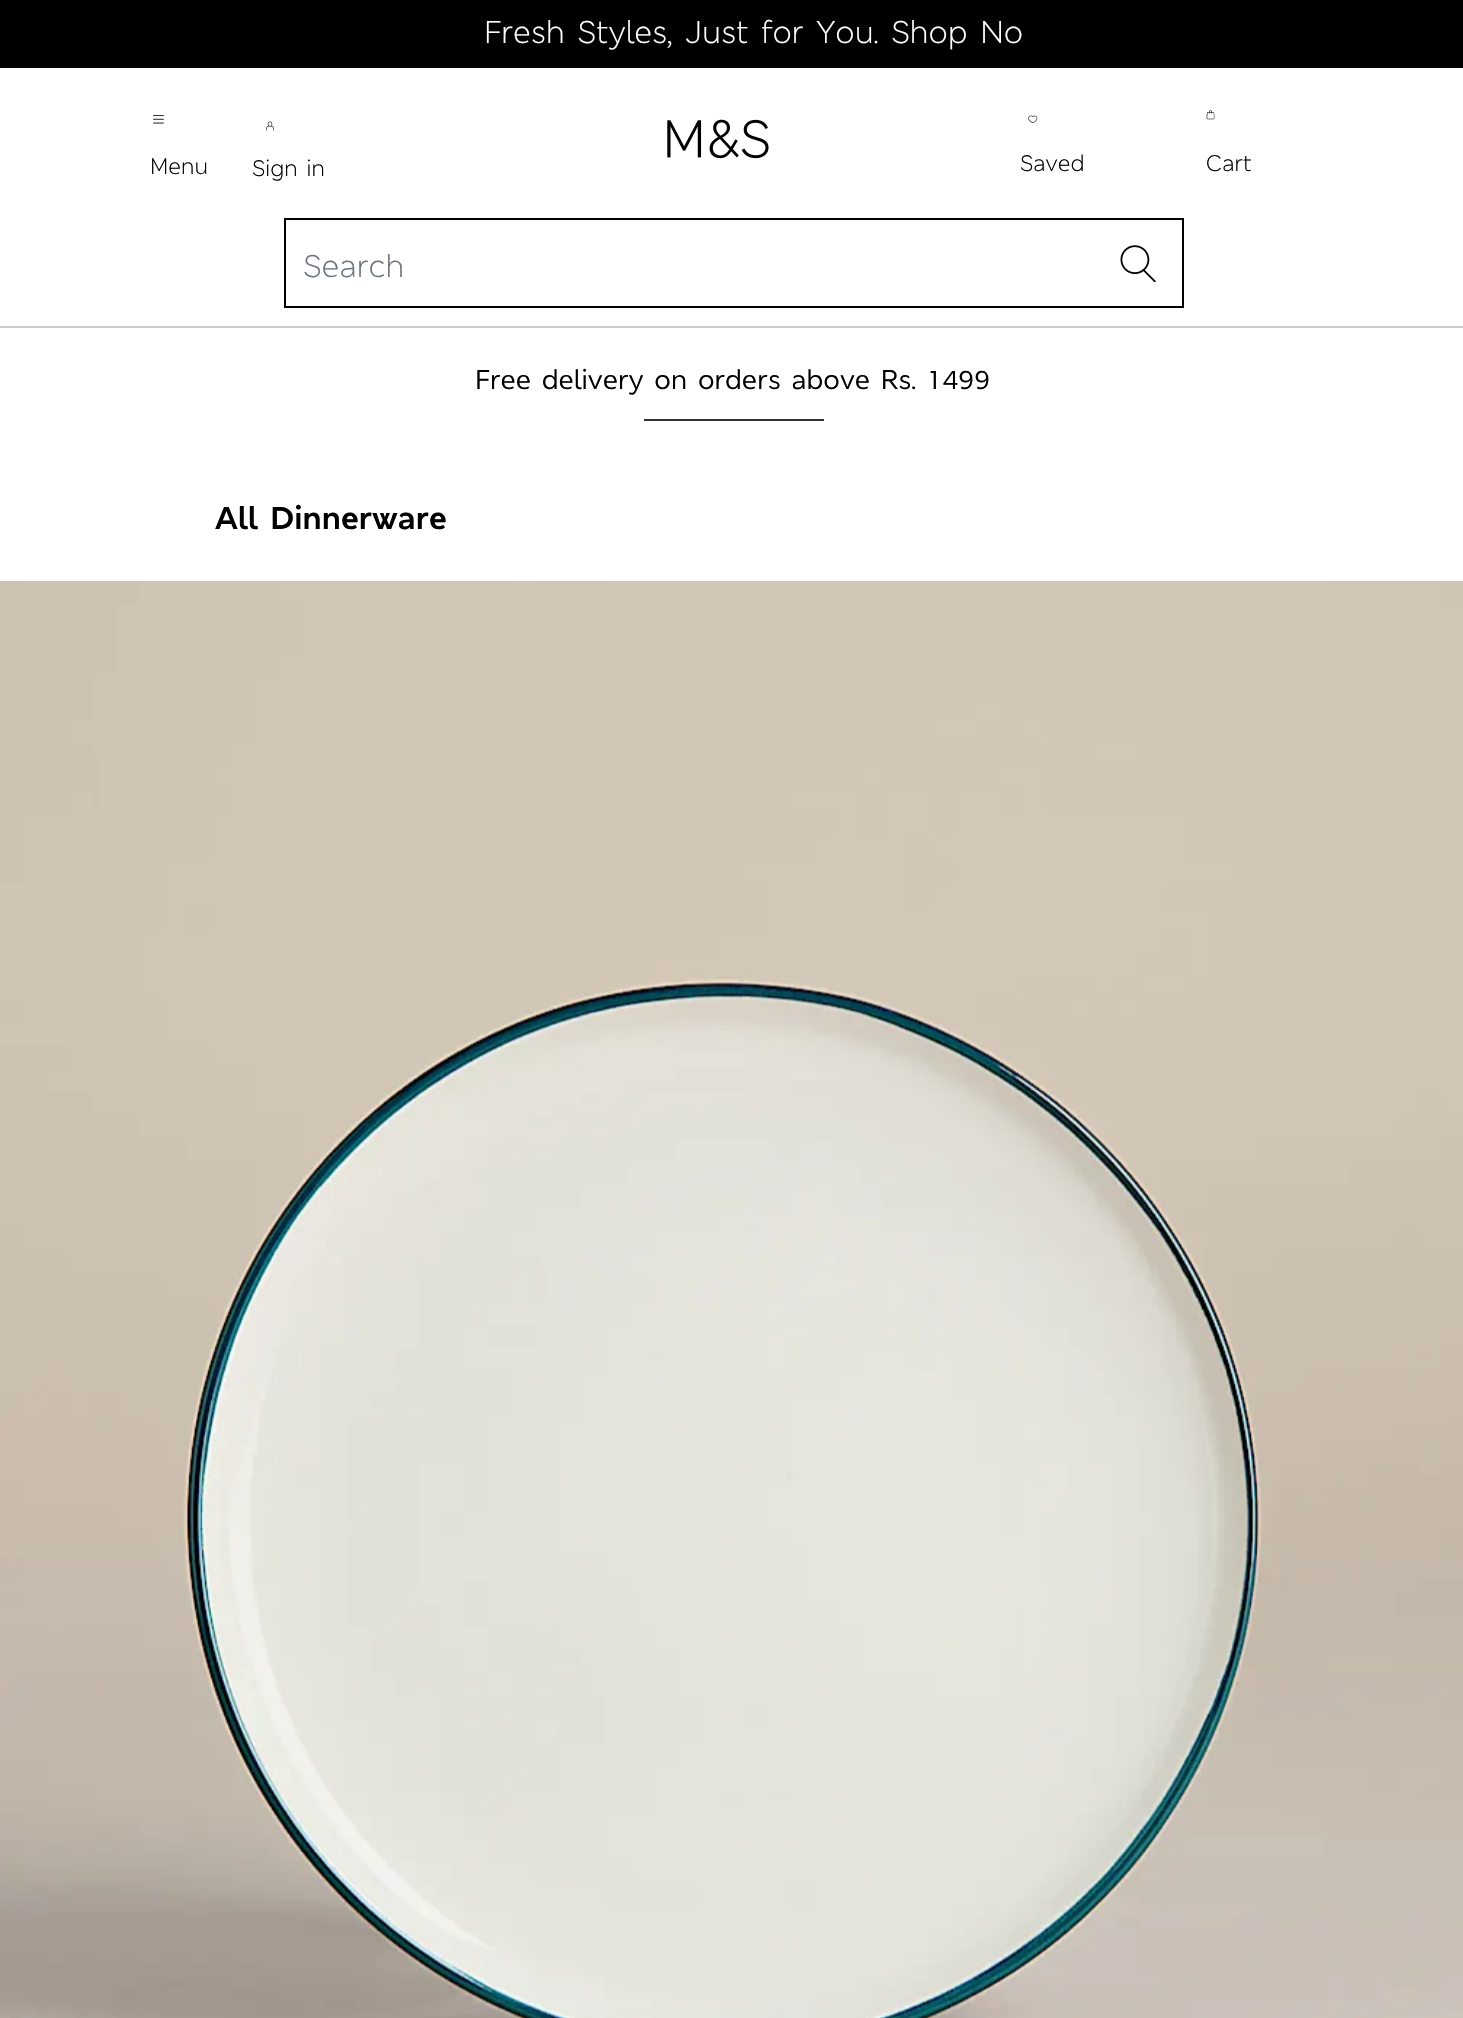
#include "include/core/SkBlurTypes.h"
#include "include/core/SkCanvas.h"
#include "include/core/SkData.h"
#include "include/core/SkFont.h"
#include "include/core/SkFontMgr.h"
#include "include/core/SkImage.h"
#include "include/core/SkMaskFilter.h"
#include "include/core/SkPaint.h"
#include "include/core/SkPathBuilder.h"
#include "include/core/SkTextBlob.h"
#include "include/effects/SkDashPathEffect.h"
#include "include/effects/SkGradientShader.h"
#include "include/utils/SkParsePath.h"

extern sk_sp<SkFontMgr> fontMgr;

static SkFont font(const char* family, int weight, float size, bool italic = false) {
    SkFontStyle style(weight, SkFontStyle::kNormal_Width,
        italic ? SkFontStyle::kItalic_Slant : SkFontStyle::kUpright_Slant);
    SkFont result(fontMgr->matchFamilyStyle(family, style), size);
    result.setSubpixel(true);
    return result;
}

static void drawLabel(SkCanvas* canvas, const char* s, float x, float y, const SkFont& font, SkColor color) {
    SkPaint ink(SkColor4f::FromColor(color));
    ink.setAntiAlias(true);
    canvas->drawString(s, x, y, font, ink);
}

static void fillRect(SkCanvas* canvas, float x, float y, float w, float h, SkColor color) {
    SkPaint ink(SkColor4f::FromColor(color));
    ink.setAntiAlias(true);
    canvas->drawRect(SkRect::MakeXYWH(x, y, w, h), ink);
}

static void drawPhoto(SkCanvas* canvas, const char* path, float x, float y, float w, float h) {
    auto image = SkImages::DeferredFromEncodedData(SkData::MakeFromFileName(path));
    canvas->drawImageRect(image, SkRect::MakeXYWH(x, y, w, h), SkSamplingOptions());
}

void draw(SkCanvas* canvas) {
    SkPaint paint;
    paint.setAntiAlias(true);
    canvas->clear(0xFFFFFFFF);
    fillRect(canvas, 0, 326, 1463, 2, 0xFFCCCCCC);
    fillRect(canvas, 0, 0, 1463, 68, 0xFF000000);
    SkFont font1 = font("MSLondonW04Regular", 400, 31.5f);
    drawLabel(canvas, "Fresh Styles, Just for You. Shop No", 484, 43, font1, 0xFFFFFFFF);
    drawPhoto(canvas, "assets/img1.png", 667, 119, 102, 40);
    drawPhoto(canvas, "assets/img2.png", 153, 115, 11, 9);
    SkFont font2 = font("MSLondonW04Regular", 400, 22.5f);
    drawLabel(canvas, "Menu", 150, 174, font2, 0xFF000000);
    drawPhoto(canvas, "assets/img3.png", 266, 121, 8, 10);
    drawLabel(canvas, "Sign in", 252, 176, font2, 0xFF000000);
    drawPhoto(canvas, "assets/img4.png", 1028, 115, 10, 8);
    drawLabel(canvas, "Saved", 1020, 171, font2, 0xFF000000);
    drawPhoto(canvas, "assets/img5.png", 1206, 110, 9, 10);
    drawLabel(canvas, "Cart", 1206, 171, font2, 0xFF000000);
    paint.setStroke(true);
    paint.setStrokeWidth(2);
    paint.setColor(0xFF000000);
    canvas->drawRect(SkRect::MakeXYWH(285, 219, 898, 88), paint);
    drawLabel(canvas, "Search", 303, 277, font1, 0xFF6C757D);
    drawPhoto(canvas, "assets/img6.png", 1120, 245, 36, 38);
    SkFont font3 = font("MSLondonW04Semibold", 600, 27);
    drawLabel(canvas, "Free delivery on orders above Rs. 1499", 475, 389, font3, 0xFF000000);
    fillRect(canvas, 644, 419, 180, 2, 0xFF333333);
    SkFont font4 = font("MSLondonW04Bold", 700, 31.5f);
    drawLabel(canvas, "All Dinnerware", 215, 529, font4, 0xFF000000);
    drawPhoto(canvas, "assets/img7.png", 0, 581, 1463, 1437);
}
